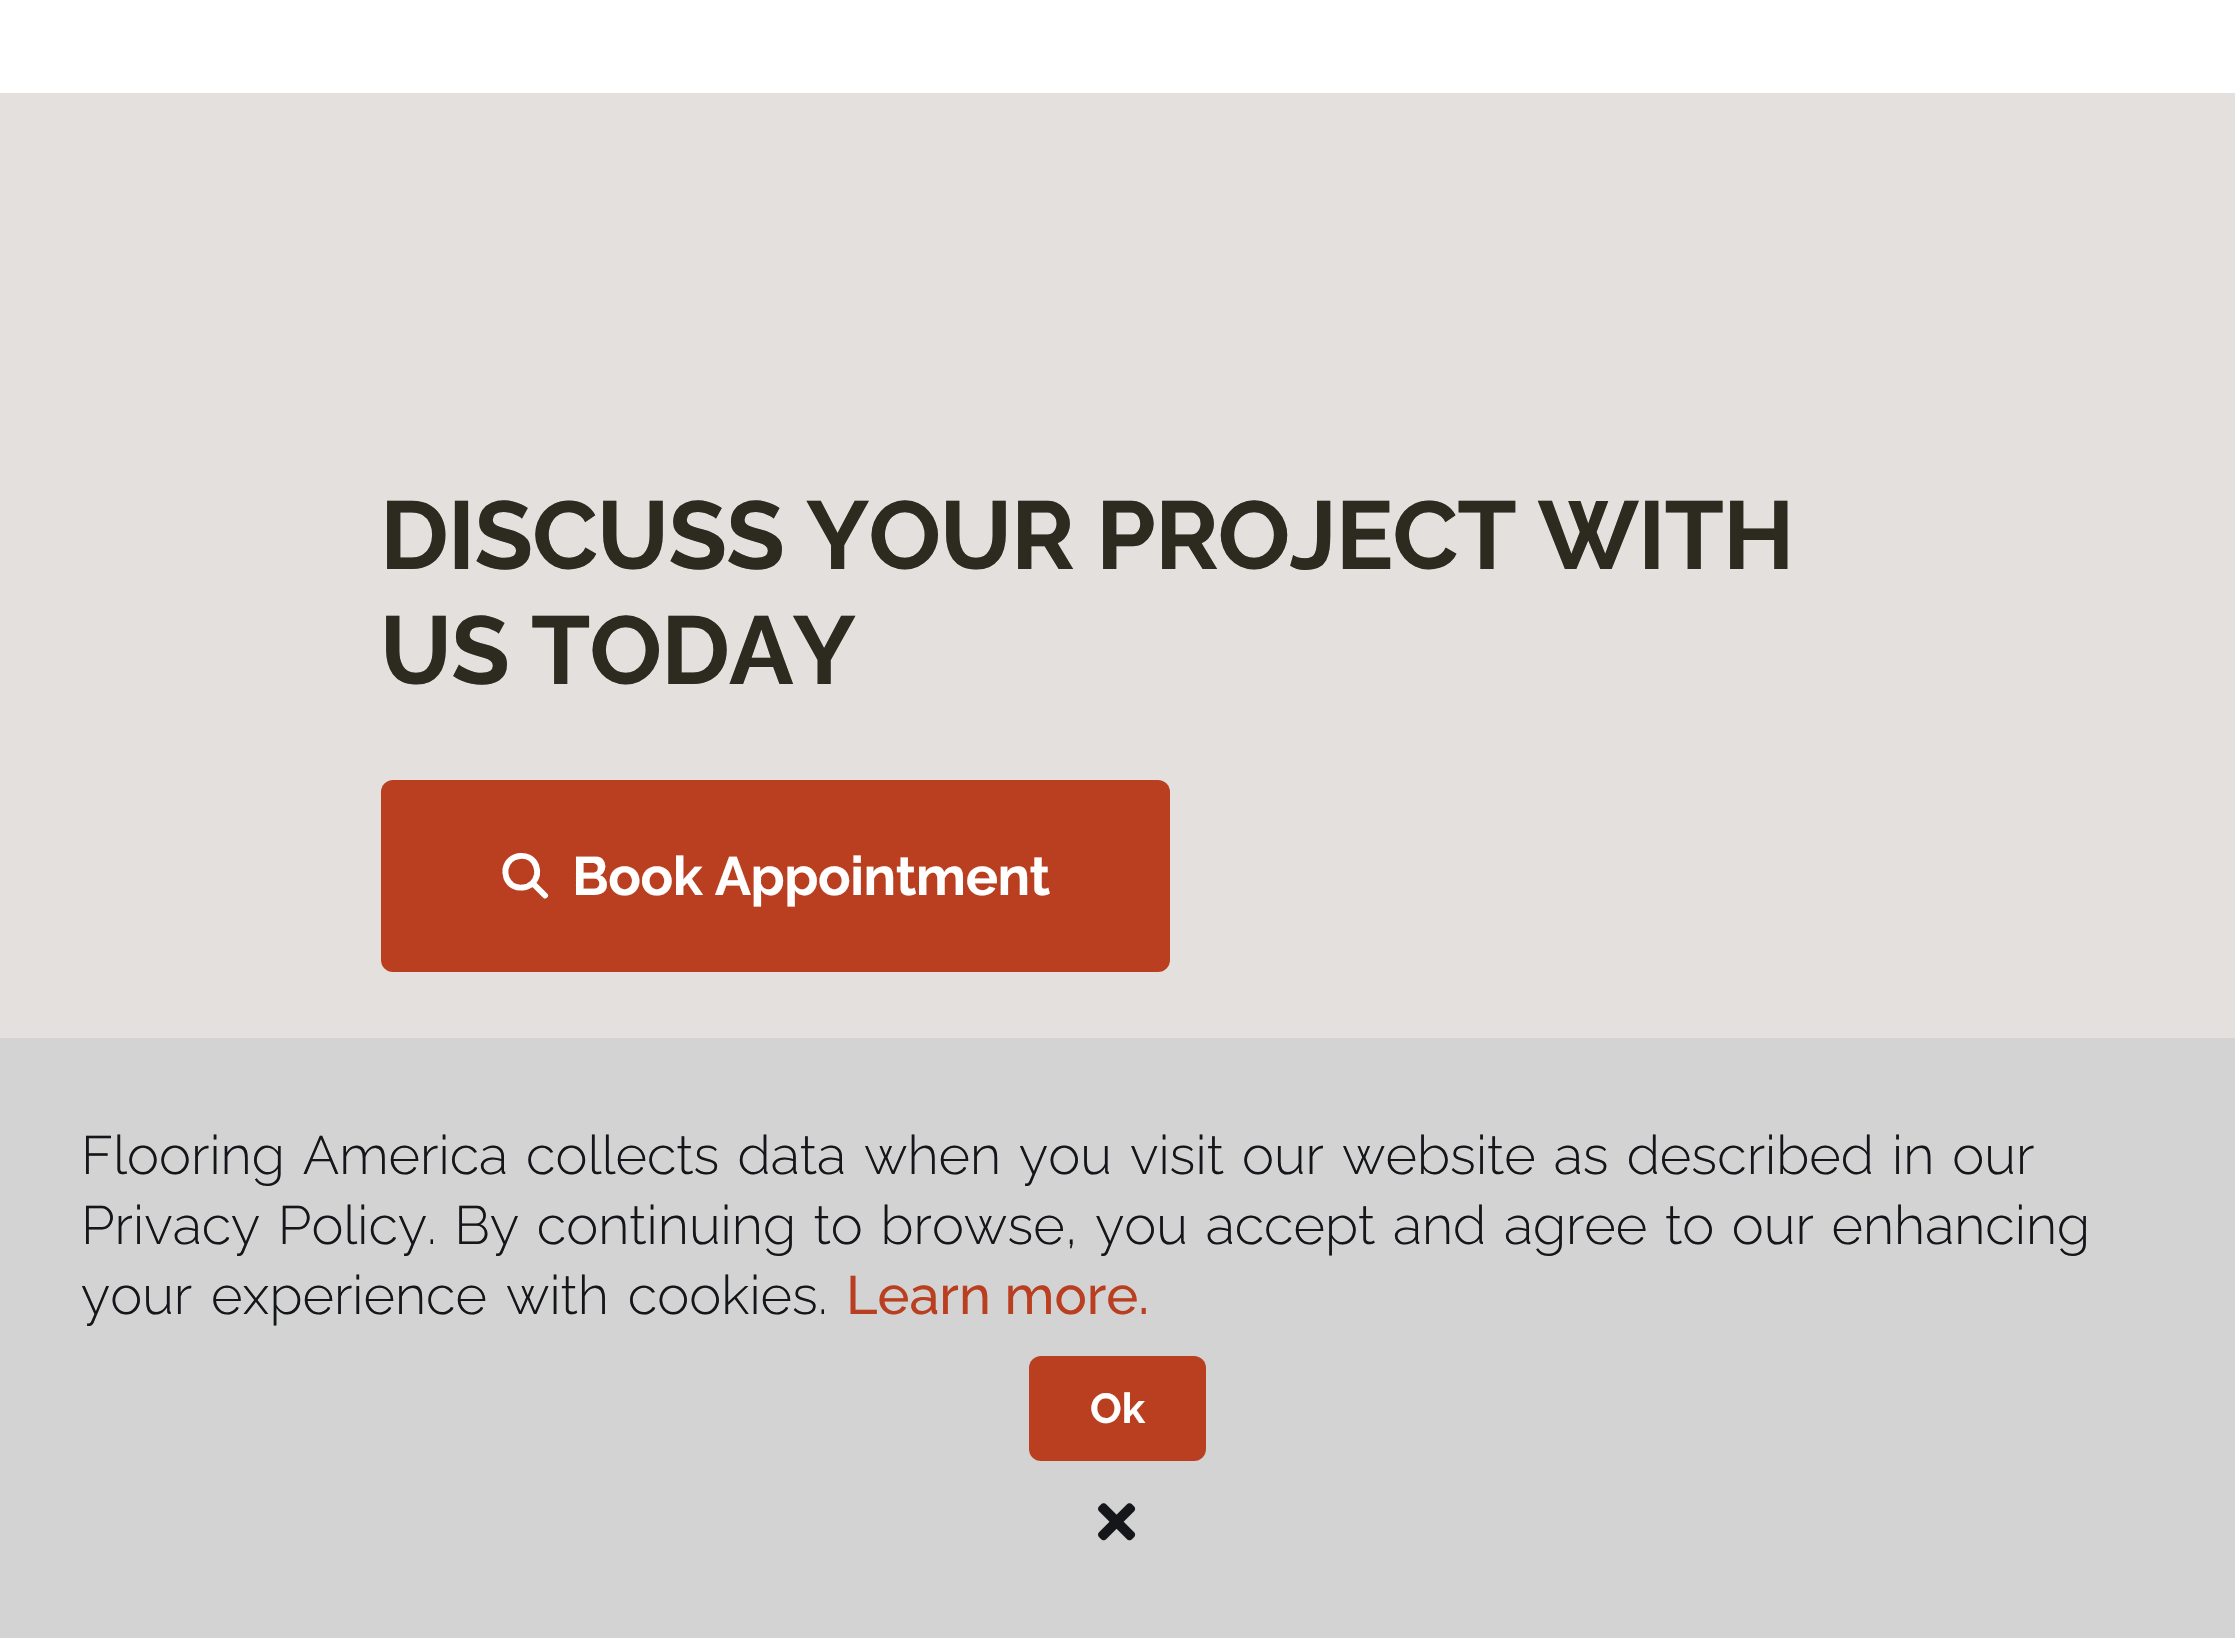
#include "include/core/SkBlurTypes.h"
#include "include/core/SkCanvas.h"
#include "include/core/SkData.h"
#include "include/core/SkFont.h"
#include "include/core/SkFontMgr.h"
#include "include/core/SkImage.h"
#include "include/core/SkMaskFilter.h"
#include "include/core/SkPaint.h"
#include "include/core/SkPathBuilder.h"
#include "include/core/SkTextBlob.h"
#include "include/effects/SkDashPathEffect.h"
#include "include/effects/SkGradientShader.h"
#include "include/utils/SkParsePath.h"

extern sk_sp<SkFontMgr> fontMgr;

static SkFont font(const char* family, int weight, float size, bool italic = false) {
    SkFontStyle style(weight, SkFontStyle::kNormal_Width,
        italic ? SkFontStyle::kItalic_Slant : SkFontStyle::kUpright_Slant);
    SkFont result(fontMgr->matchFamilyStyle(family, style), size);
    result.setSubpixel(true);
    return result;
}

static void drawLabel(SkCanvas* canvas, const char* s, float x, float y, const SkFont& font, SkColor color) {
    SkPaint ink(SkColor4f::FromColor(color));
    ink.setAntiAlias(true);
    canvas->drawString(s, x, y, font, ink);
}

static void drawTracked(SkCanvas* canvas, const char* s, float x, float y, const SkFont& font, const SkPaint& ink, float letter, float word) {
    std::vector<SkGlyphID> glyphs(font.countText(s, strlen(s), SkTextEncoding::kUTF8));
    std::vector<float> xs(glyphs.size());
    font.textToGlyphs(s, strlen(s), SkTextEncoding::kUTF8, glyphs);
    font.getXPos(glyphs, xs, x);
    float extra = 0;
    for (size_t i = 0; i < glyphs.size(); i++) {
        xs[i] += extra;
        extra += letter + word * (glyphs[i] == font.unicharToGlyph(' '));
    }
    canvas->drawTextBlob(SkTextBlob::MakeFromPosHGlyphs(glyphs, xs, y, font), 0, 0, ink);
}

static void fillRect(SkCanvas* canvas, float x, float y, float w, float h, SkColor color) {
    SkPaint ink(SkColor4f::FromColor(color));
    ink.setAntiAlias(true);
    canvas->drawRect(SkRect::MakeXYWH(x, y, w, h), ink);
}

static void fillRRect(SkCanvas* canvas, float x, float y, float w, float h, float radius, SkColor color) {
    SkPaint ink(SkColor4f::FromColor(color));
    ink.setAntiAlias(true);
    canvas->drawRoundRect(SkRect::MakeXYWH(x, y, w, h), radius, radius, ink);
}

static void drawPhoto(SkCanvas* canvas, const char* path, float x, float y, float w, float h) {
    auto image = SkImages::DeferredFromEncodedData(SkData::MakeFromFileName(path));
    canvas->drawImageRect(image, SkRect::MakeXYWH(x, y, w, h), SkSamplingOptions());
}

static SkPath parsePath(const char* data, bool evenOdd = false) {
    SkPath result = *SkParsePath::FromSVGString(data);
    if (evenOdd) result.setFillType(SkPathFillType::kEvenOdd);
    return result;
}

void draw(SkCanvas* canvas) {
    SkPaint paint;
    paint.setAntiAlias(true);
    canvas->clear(0xFFFFFFFF);
    fillRect(canvas, 0, 93, 2235, 945, 0xFFE3E0DD);
    SkFont font1 = font("Raleway", 700, 96);
    paint.setColor(0xFF2D2A20);
    drawTracked(canvas, "DISCUSS YOUR PROJECT WITH", 380, 569, font1, paint, -0.95f, 0);
    drawTracked(canvas, "US TODAY", 380, 684, font1, paint, -0.95f, 0);
    fillRRect(canvas, 381, 780, 789, 192, 12, 0xFFB93F20);
    paint.setStroke(true);
    paint.setStrokeWidth(6);
    paint.setStrokeCap(SkPaint::kRound_Cap);
    paint.setStrokeJoin(SkPaint::kRound_Join);
    paint.setColor(0xFFFFFFFF);
    canvas->drawPath(parsePath("M506.5 878C512.5 892.5 534 890 537 874.5C537.5 871.5 537 868.5 536 865.5C530 851 508.5 853.5 505.5 869C505 872 505.5 875 506.5 878ZM532.5 883L545 895.5"), paint);
    SkFont font2 = font("Raleway", 700, 54);
    paint.setStroke(false);
    drawTracked(canvas, "Book Appointment", 572, 895, font2, paint, -0.5f, 0);
    fillRect(canvas, 0, 1038, 2235, 600, 0xFFD3D3D4);
    SkFont font3 = font("Raleway", 300, 54);
    paint.setColor(0xFF141619);
    drawTracked(canvas, "Flooring America collects data when you visit our website as described in our", 81, 1174, font3, paint, 0, 4.1f);
    drawTracked(canvas, "Privacy Policy. By continuing to browse, you accept and agree to our enhancing", 81, 1244, font3, paint, 0, 3.75f);
    drawTracked(canvas, "your experience with cookies.", 81, 1314, font3, paint, 0, 5);
    SkFont font4 = font("Raleway", 500, 54);
    drawLabel(canvas, "Learn more.", 846, 1314, font4, 0xFFB93F20);
    fillRRect(canvas, 1029, 1356, 177, 105, 12, 0xFFB93F20);
    SkFont font5 = font("Raleway", 700, 42);
    drawLabel(canvas, "Ok", 1090, 1423, font5, 0xFFFFFFFF);
    drawPhoto(canvas, "assets/img1.png", 1098, 1503, 38, 38);
}
